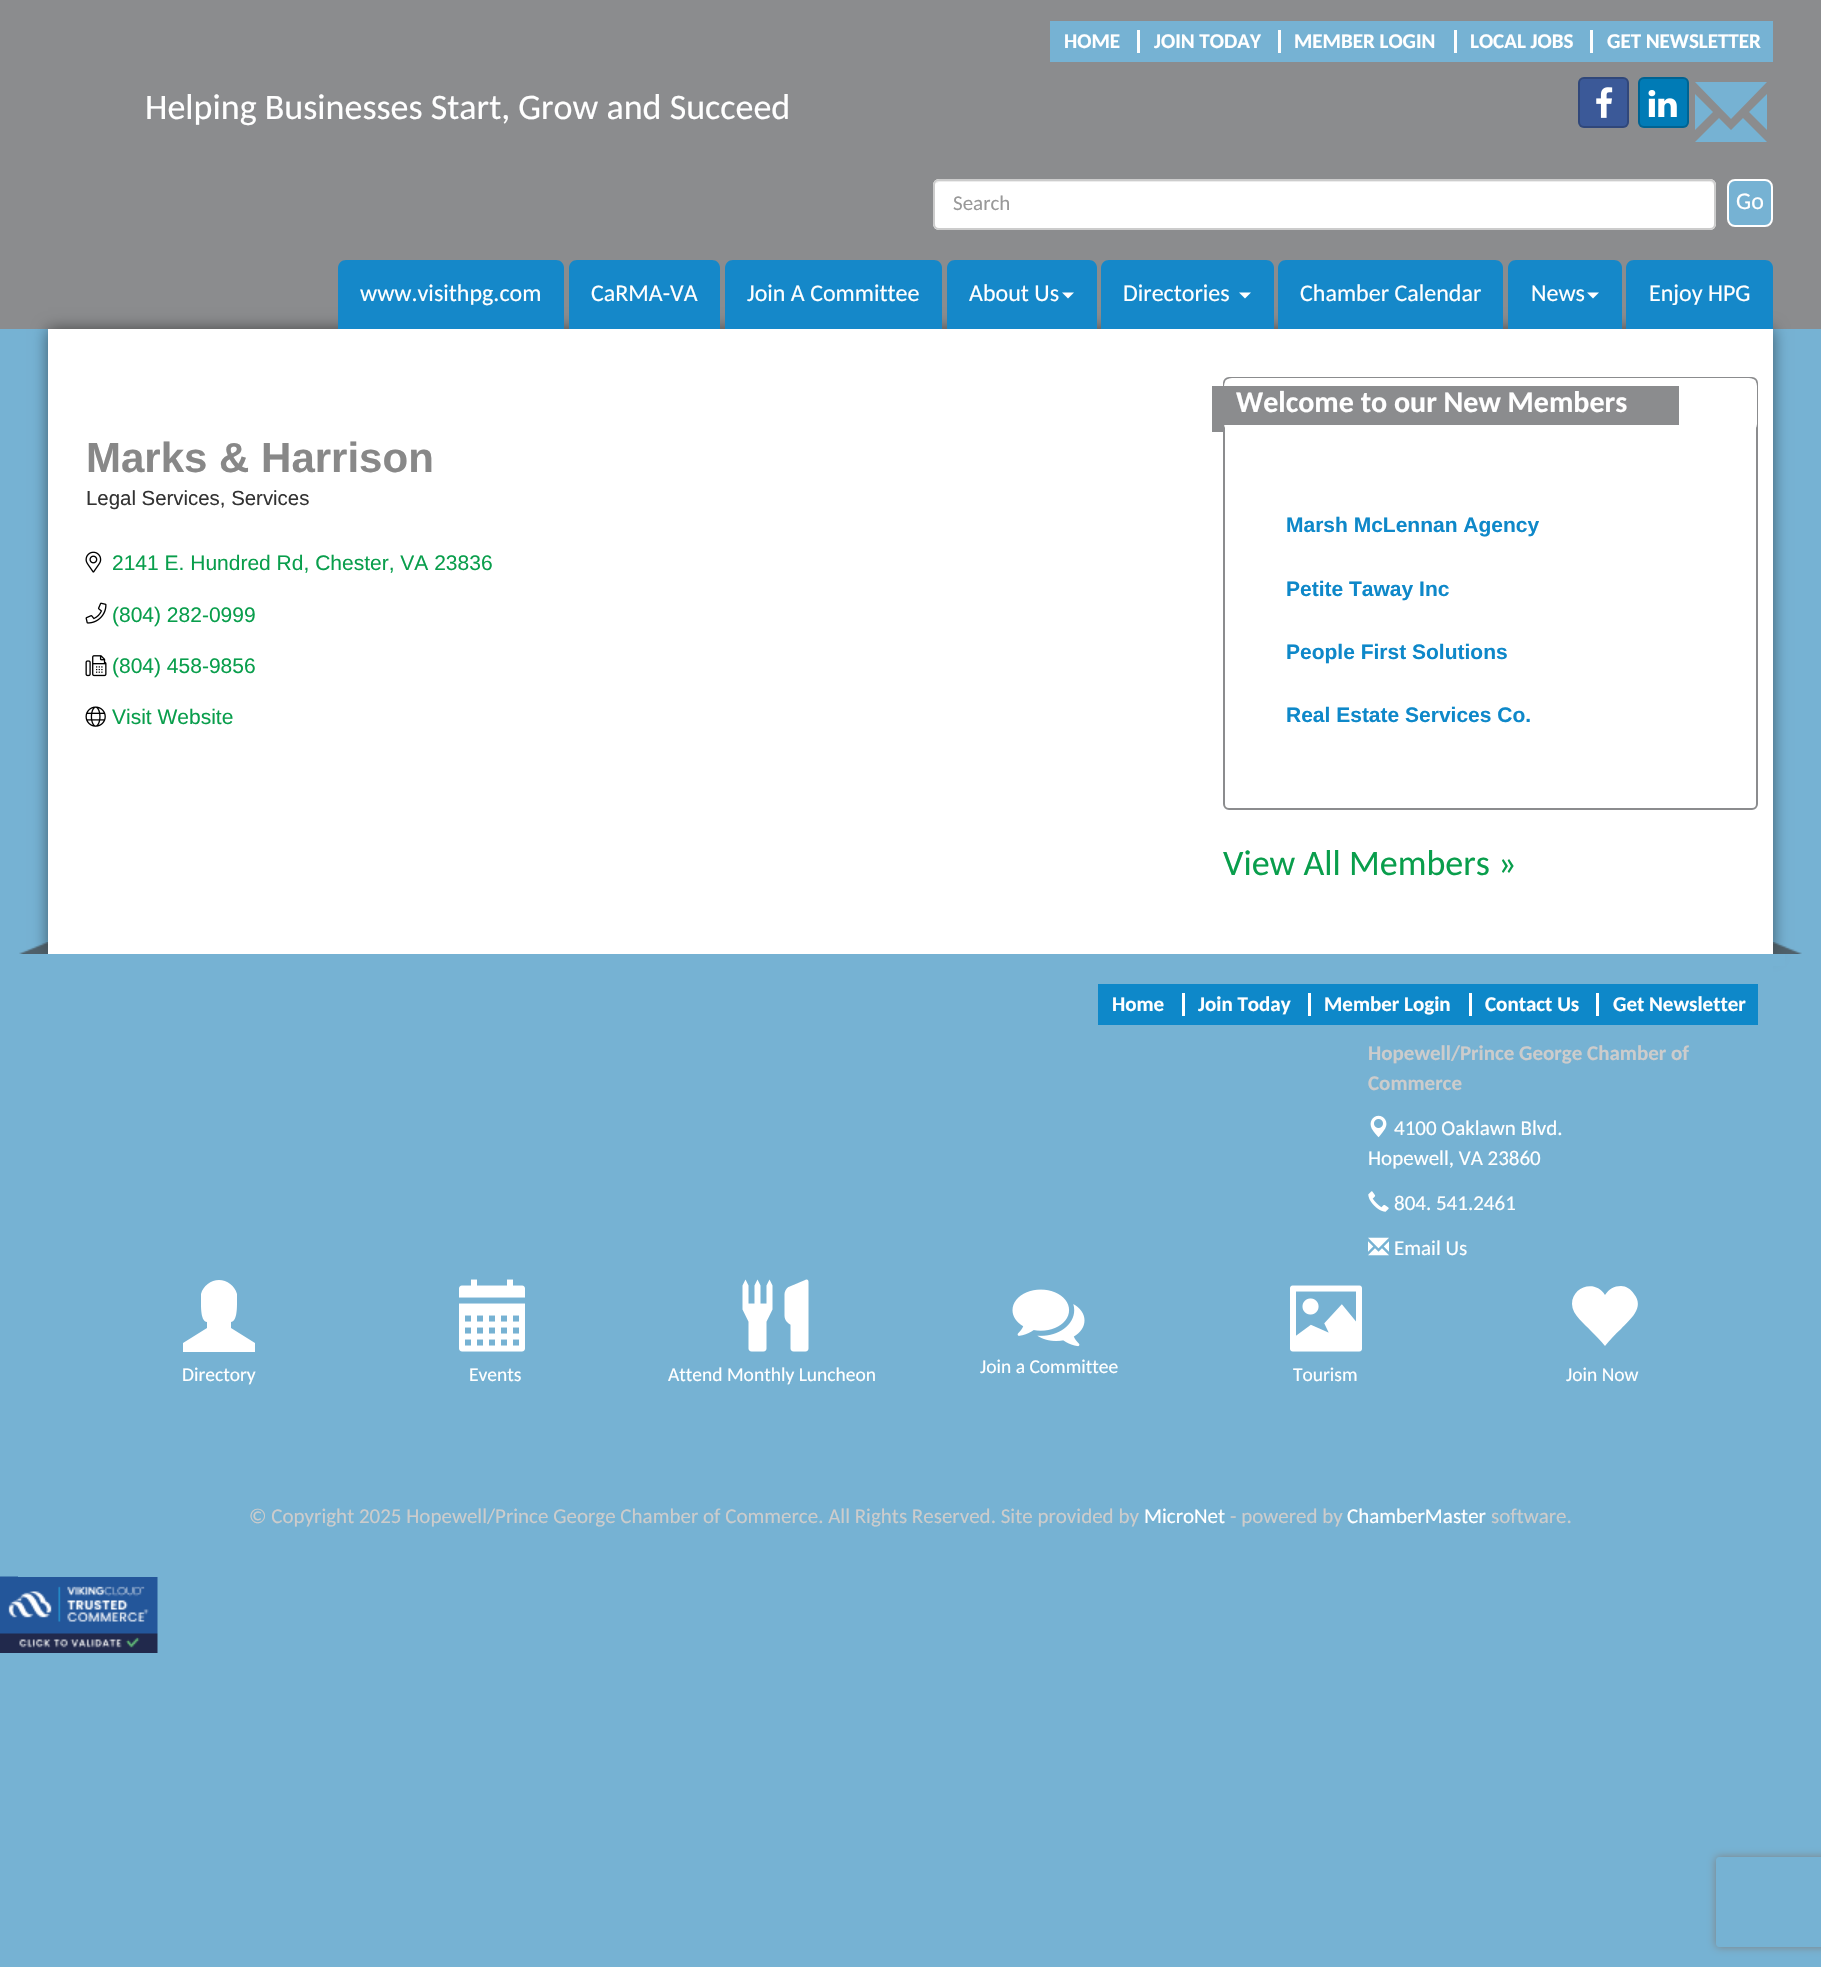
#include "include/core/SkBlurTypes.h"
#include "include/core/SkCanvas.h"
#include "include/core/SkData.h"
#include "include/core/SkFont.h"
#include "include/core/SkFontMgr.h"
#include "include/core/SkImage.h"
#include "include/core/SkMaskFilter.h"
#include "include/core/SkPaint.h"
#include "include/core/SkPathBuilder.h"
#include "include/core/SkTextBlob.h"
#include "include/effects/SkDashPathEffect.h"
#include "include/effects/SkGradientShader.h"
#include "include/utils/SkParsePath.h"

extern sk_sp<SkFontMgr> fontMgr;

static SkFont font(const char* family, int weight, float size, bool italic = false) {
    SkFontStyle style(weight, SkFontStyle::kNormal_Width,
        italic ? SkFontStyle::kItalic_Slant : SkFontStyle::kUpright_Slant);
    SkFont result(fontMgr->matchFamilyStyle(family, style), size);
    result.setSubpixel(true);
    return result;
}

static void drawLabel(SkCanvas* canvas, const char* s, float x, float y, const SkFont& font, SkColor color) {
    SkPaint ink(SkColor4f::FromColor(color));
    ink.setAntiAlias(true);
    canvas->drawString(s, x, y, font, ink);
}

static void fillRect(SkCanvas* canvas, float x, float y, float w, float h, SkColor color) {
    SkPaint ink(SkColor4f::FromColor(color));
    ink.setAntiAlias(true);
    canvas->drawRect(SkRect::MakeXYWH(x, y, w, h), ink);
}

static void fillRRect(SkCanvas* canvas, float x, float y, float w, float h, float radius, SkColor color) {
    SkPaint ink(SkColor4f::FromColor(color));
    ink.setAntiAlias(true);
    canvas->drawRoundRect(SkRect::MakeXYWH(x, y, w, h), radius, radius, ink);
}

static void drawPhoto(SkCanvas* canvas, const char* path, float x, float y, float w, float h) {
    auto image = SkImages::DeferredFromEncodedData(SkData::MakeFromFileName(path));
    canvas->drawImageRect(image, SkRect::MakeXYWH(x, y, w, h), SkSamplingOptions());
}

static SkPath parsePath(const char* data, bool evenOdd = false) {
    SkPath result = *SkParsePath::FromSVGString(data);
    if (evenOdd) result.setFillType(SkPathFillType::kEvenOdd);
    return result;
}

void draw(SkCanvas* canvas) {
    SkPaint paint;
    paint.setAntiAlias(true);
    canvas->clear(0xFF76B2D3);
    fillRect(canvas, 0, 0, 1821, 329, 0xFF8B8C8E);
    SkFont font1 = font("Carlito", 400, 36);
    drawLabel(canvas, "Helping Businesses Start, Grow and Succeed", 145, 119, font1, 0xFFFFFFFF);
    fillRect(canvas, 1050, 21, 723, 41, 0xFF76B2D3);
    SkFont font2 = font("Carlito", 700, 21);
    drawLabel(canvas, "HOME", 1064, 48, font2, 0xFFFFFFFF);
    fillRect(canvas, 1137, 30, 3, 23, 0xFFFDFDFD);
    drawLabel(canvas, "JOIN TODAY", 1154, 48, font2, 0xFFFFFFFF);
    fillRect(canvas, 1278, 30, 3, 23, 0xFFFDFDFD);
    drawLabel(canvas, "MEMBER LOGIN", 1294, 48, font2, 0xFFFFFFFF);
    fillRect(canvas, 1454, 30, 3, 23, 0xFFFDFDFD);
    drawLabel(canvas, "LOCAL JOBS", 1470, 48, font2, 0xFFFFFFFF);
    fillRect(canvas, 1590, 30, 3, 23, 0xFFFDFDFD);
    drawLabel(canvas, "GET NEWSLETTER", 1607, 48, font2, 0xFFFFFFFF);
    fillRRect(canvas, 1578, 77, 51, 51, 6, 0xFF3B5998);
    paint.setStroke(true);
    paint.setStrokeWidth(2);
    paint.setColor(0x33000000);
    canvas->drawRoundRect(SkRect::MakeXYWH(1579, 78, 49, 49), 5, 5, paint);
    drawPhoto(canvas, "assets/img1.png", 1596, 87, 17, 31);
    fillRRect(canvas, 1638, 77, 51, 51, 6, 0xFF007BB6);
    canvas->drawRoundRect(SkRect::MakeXYWH(1639, 78, 49, 49), 5, 5, paint);
    drawPhoto(canvas, "assets/img2.png", 1648, 90, 29, 27);
    paint.setStroke(false);
    paint.setColor(0xFF76B2D3);
    canvas->drawPath(parsePath("M1695 142L1719 118L1731 130L1743 118L1767 142ZM1695 130V94L1713 112ZM1695 82L1731 119L1767 82ZM1749 112L1767 94V130Z"), paint);
    fillRRect(canvas, 933, 179, 783, 51, 6, 0xFFFFFFFF);
    paint.setColor(0xFFECECEC);
    canvas->drawPath(parsePath("M939 182H1710C1712 182 1714 184 1714 186V226C1715 225 1715 224 1715 223V185C1715 182 1713 180 1710 180H940C938 180 936 182 935 184C936 183 938 182 939 182Z"), paint);
    paint.setStroke(true);
    paint.setColor(0xFFCCCCCC);
    canvas->drawRoundRect(SkRect::MakeXYWH(934, 180, 781, 49), 5, 5, paint);
    SkFont font3 = font("Carlito", 400, 21);
    drawLabel(canvas, "Search", 953, 210, font3, 0xFF999999);
    paint.setStroke(false);
    paint.setColor(0xFF76B2D3);
    canvas->drawRoundRect(SkRect::MakeXYWH(1728, 180, 44, 46), 7, 7, paint);
    paint.setStroke(true);
    paint.setColor(0xFFFFFFFF);
    canvas->drawRoundRect(SkRect::MakeXYWH(1728, 180, 44, 46), 7, 7, paint);
    SkFont font4 = font("Carlito", 400, 24);
    drawLabel(canvas, "Go", 1736, 209, font4, 0xFFFFFFFF);
    paint.setStroke(false);
    paint.setColor(0x80000000);
    paint.setMaskFilter(SkMaskFilter::MakeBlur(kNormal_SkBlurStyle, 7.5f));
    canvas->drawRect(SkRect::MakeXYWH(48, 329, 1725, 625), paint);
    paint.setMaskFilter(nullptr);
    paint.setColor(0xFF1588C9);
    canvas->drawPath(parsePath("M346 260H556C560.5 260 564 263.5 564 268V329H338V268C338 263.5 341.5 260 346 260Z"), paint);
    drawLabel(canvas, "www.visithpg.com", 360, 301, font4, 0xFFFFFFFF);
    canvas->drawPath(parsePath("M577 260H712C716.5 260 720 263.5 720 268V329H569V268C569 263.5 572.5 260 577 260Z"), paint);
    drawLabel(canvas, "CaRMA-VA", 591, 301, font4, 0xFFFFFFFF);
    canvas->drawPath(parsePath("M733 260H934C938.5 260 942 263.5 942 268V329H725V268C725 263.5 728.5 260 733 260Z"), paint);
    drawLabel(canvas, "Join A Committee", 747, 301, font4, 0xFFFFFFFF);
    canvas->drawPath(parsePath("M955 260H1089C1093.5 260 1097 263.5 1097 268V329H947V268C947 263.5 950.5 260 955 260Z"), paint);
    drawLabel(canvas, "About Us", 969, 301, font4, 0xFFFFFFFF);
    paint.setColor(0xFFFFFFFF);
    canvas->drawPath(parsePath("M1062 292.5H1074L1068 298.5Z"), paint);
    paint.setColor(0xFF1588C9);
    canvas->drawPath(parsePath("M1109 260H1266C1270.5 260 1274 263.5 1274 268V329H1101V268C1101 263.5 1104.5 260 1109 260Z"), paint);
    drawLabel(canvas, "Directories", 1123, 301, font4, 0xFFFFFFFF);
    paint.setColor(0xFFFFFFFF);
    canvas->drawPath(parsePath("M1239 292.5H1251L1245 298.5Z"), paint);
    paint.setColor(0xFF1588C9);
    canvas->drawPath(parsePath("M1286 260H1495C1499.5 260 1503 263.5 1503 268V329H1278V268C1278 263.5 1281.5 260 1286 260Z"), paint);
    drawLabel(canvas, "Chamber Calendar", 1300, 301, font4, 0xFFFFFFFF);
    canvas->drawPath(parsePath("M1516 260H1614C1618.5 260 1622 263.5 1622 268V329H1508V268C1508 263.5 1511.5 260 1516 260Z"), paint);
    drawLabel(canvas, "News", 1531, 301, font4, 0xFFFFFFFF);
    paint.setColor(0xFFFFFFFF);
    canvas->drawPath(parsePath("M1587 292.5H1599L1593 298.5Z"), paint);
    paint.setColor(0xFF1588C9);
    canvas->drawPath(parsePath("M1634 260H1765C1769.5 260 1773 263.5 1773 268V329H1626V268C1626 263.5 1629.5 260 1634 260Z"), paint);
    drawLabel(canvas, "Enjoy HPG", 1649, 301, font4, 0xFFFFFFFF);
    fillRect(canvas, 48, 329, 1725, 625, 0xFFFFFFFF);
    SkFont font5 = font("Liberation Sans", 700, 42);
    drawLabel(canvas, "Marks & Harrison", 86, 472, font5, 0xFF888888);
    SkFont font6 = font("Liberation Sans", 400, 20.4f);
    drawLabel(canvas, "Legal Services, Services", 86, 505, font6, 0xFF333333);
    drawPhoto(canvas, "assets/img3.png", 85, 551, 17, 22);
    SkFont font7 = font("Liberation Sans", 400, 21);
    drawLabel(canvas, "2141 E. Hundred Rd, Chester, VA 23836", 112, 570, font7, 0xFF099E4C);
    drawPhoto(canvas, "assets/img4.png", 85, 602, 22, 22);
    drawLabel(canvas, "(804) 282-0999", 112, 622, font7, 0xFF099E4C);
    drawPhoto(canvas, "assets/img5.png", 85, 655, 22, 22);
    drawLabel(canvas, "(804) 458-9856", 112, 673, font7, 0xFF099E4C);
    drawPhoto(canvas, "assets/img6.png", 85, 706, 21, 21);
    drawLabel(canvas, "Visit Website", 112, 724, font7, 0xFF099E4C);
    paint.setStroke(true);
    paint.setColor(0xFF8B8C8E);
    canvas->drawRoundRect(SkRect::MakeXYWH(1224, 378, 533, 431), 5, 5, paint);
    fillRRect(canvas, 1224, 378, 533, 54, 8, 0xFFFFFFFF);
    fillRect(canvas, 1224, 386, 455, 39, 0xFF8B8C8E);
    fillRect(canvas, 1212, 386, 11, 46, 0xFF8B8C8E);
    SkFont font8 = font("Carlito", 700, 30);
    drawLabel(canvas, "Welcome to our New Members", 1236, 412, font8, 0xFFFFFFFF);
    SkFont font9 = font("Liberation Sans", 700, 21);
    drawLabel(canvas, "Marsh McLennan Agency", 1286, 532, font9, 0xFF0E88C9);
    drawLabel(canvas, "Petite Taway Inc", 1286, 596, font9, 0xFF0E88C9);
    drawLabel(canvas, "People First Solutions", 1286, 659, font9, 0xFF0E88C9);
    drawLabel(canvas, "Real Estate Services Co.", 1286, 722, font9, 0xFF0E88C9);
    drawLabel(canvas, "View All Members »", 1223, 875, font1, 0xFF099E4C);
    drawPhoto(canvas, "assets/img16.png", 0, 1576, 158, 77);
    fillRect(canvas, 18, 954, 1755, 623, 0xFF76B2D3);
    drawPhoto(canvas, "assets/img7.png", 19, 942, 29, 12);
    fillRect(canvas, 1773, 954, 12, 12, 0xFF76B2D3);
    drawPhoto(canvas, "assets/img8.png", 1773, 942, 29, 12);
    fillRect(canvas, 1098, 984, 660, 41, 0xFF0E88C9);
    drawLabel(canvas, "Home", 1112, 1011, font2, 0xFFFFFFFF);
    fillRect(canvas, 1182, 993, 3, 23, 0xFFFFFFFF);
    drawLabel(canvas, "Join Today", 1198, 1011, font2, 0xFFFFFFFF);
    fillRect(canvas, 1308, 993, 3, 23, 0xFFFFFFFF);
    drawLabel(canvas, "Member Login", 1324, 1011, font2, 0xFFFFFFFF);
    fillRect(canvas, 1469, 993, 3, 23, 0xFFFFFFFF);
    drawLabel(canvas, "Contact Us", 1485, 1011, font2, 0xFFFFFFFF);
    fillRect(canvas, 1596, 993, 3, 23, 0xFFFFFFFF);
    drawLabel(canvas, "Get Newsletter", 1613, 1011, font2, 0xFFFFFFFF);
    drawLabel(canvas, "Hopewell/Prince George Chamber of", 1368, 1060, font2, 0xFFCCCCCC);
    drawLabel(canvas, "Commerce", 1368, 1090, font2, 0xFFCCCCCC);
    drawPhoto(canvas, "assets/img9.png", 1370, 1115, 17, 23);
    drawLabel(canvas, "4100 Oaklawn Blvd.", 1394, 1135, font3, 0xFFFFFFFF);
    drawLabel(canvas, "Hopewell, VA 23860", 1368, 1165, font3, 0xFFFFFFFF);
    drawPhoto(canvas, "assets/img10.png", 1368, 1191, 21, 21);
    drawLabel(canvas, "804. 541.2461", 1394, 1210, font3, 0xFFFFFFFF);
    drawPhoto(canvas, "assets/img11.png", 1368, 1237, 21, 19);
    drawLabel(canvas, "Email Us", 1394, 1255, font3, 0xFFFFFFFF);
    paint.setStroke(false);
    paint.setColor(0xFFFFFFFF);
    canvas->drawPath(parsePath("M183 1352V1343L207 1328V1322C201 1322 201 1307 201 1304V1294C203 1286 211 1280 219 1280C227 1280 235 1286 237 1294V1304C237 1307 237 1322 231 1322V1328L255 1343V1352Z"), paint);
    SkFont font10 = font("Carlito", 400, 19.5f);
    drawLabel(canvas, "Directory", 182, 1381, font10, 0xFFFFFFFF);
    drawPhoto(canvas, "assets/img12.png", 459, 1279, 66, 73);
    drawLabel(canvas, "Events", 469, 1381, font10, 0xFFFFFFFF);
    drawPhoto(canvas, "assets/img13.png", 742, 1279, 67, 73);
    drawLabel(canvas, "Attend Monthly Luncheon", 668, 1381, font10, 0xFFFFFFFF);
    drawPhoto(canvas, "assets/img14.png", 1012, 1289, 73, 58);
    drawLabel(canvas, "Join a Committee", 980, 1373, font10, 0xFFFFFFFF);
    drawPhoto(canvas, "assets/img15.png", 1290, 1285, 72, 67);
    drawLabel(canvas, "Tourism", 1293, 1381, font10, 0xFFFFFFFF);
    canvas->drawPath(parsePath("M1572 1304C1572 1287 1595 1279 1605 1295C1609 1289 1614 1286 1621 1286C1626 1286 1631 1289 1634 1294C1645 1308 1630 1319 1621 1329C1615 1334 1610 1340 1605 1346C1601 1341 1596 1336 1591 1331C1585 1324 1572 1315 1572 1304Z"), paint);
    drawLabel(canvas, "Join Now", 1566, 1381, font10, 0xFFFFFFFF);
    drawLabel(canvas, "© Copyright 2025 Hopewell/Prince George Chamber of Commerce. All Rights Reserved. Site provided by", 249, 1523, font3, 0xFFCCCCCC);
    drawLabel(canvas, "MicroNet", 1144, 1523, font3, 0xFFFFFFFF);
    drawLabel(canvas, "- powered by", 1230, 1523, font3, 0xFFCCCCCC);
    drawLabel(canvas, "ChamberMaster", 1347, 1523, font3, 0xFFFFFFFF);
    drawLabel(canvas, "software.", 1491, 1523, font3, 0xFFCCCCCC);
    canvas->save();
    canvas->clipPath(parsePath("M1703 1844H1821V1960H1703ZM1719 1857H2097C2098.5 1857 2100 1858.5 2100 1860V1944C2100 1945.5 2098.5 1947 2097 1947H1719C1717.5 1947 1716 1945.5 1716 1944V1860C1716 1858.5 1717.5 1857 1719 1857Z", true), true);
    paint.setColor(0xFF808080);
    paint.setMaskFilter(SkMaskFilter::MakeBlur(kNormal_SkBlurStyle, 4));
    canvas->drawRoundRect(SkRect::MakeXYWH(1716, 1857, 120, 90), 3, 3, paint);
    paint.setMaskFilter(nullptr);
    canvas->restore();
}
